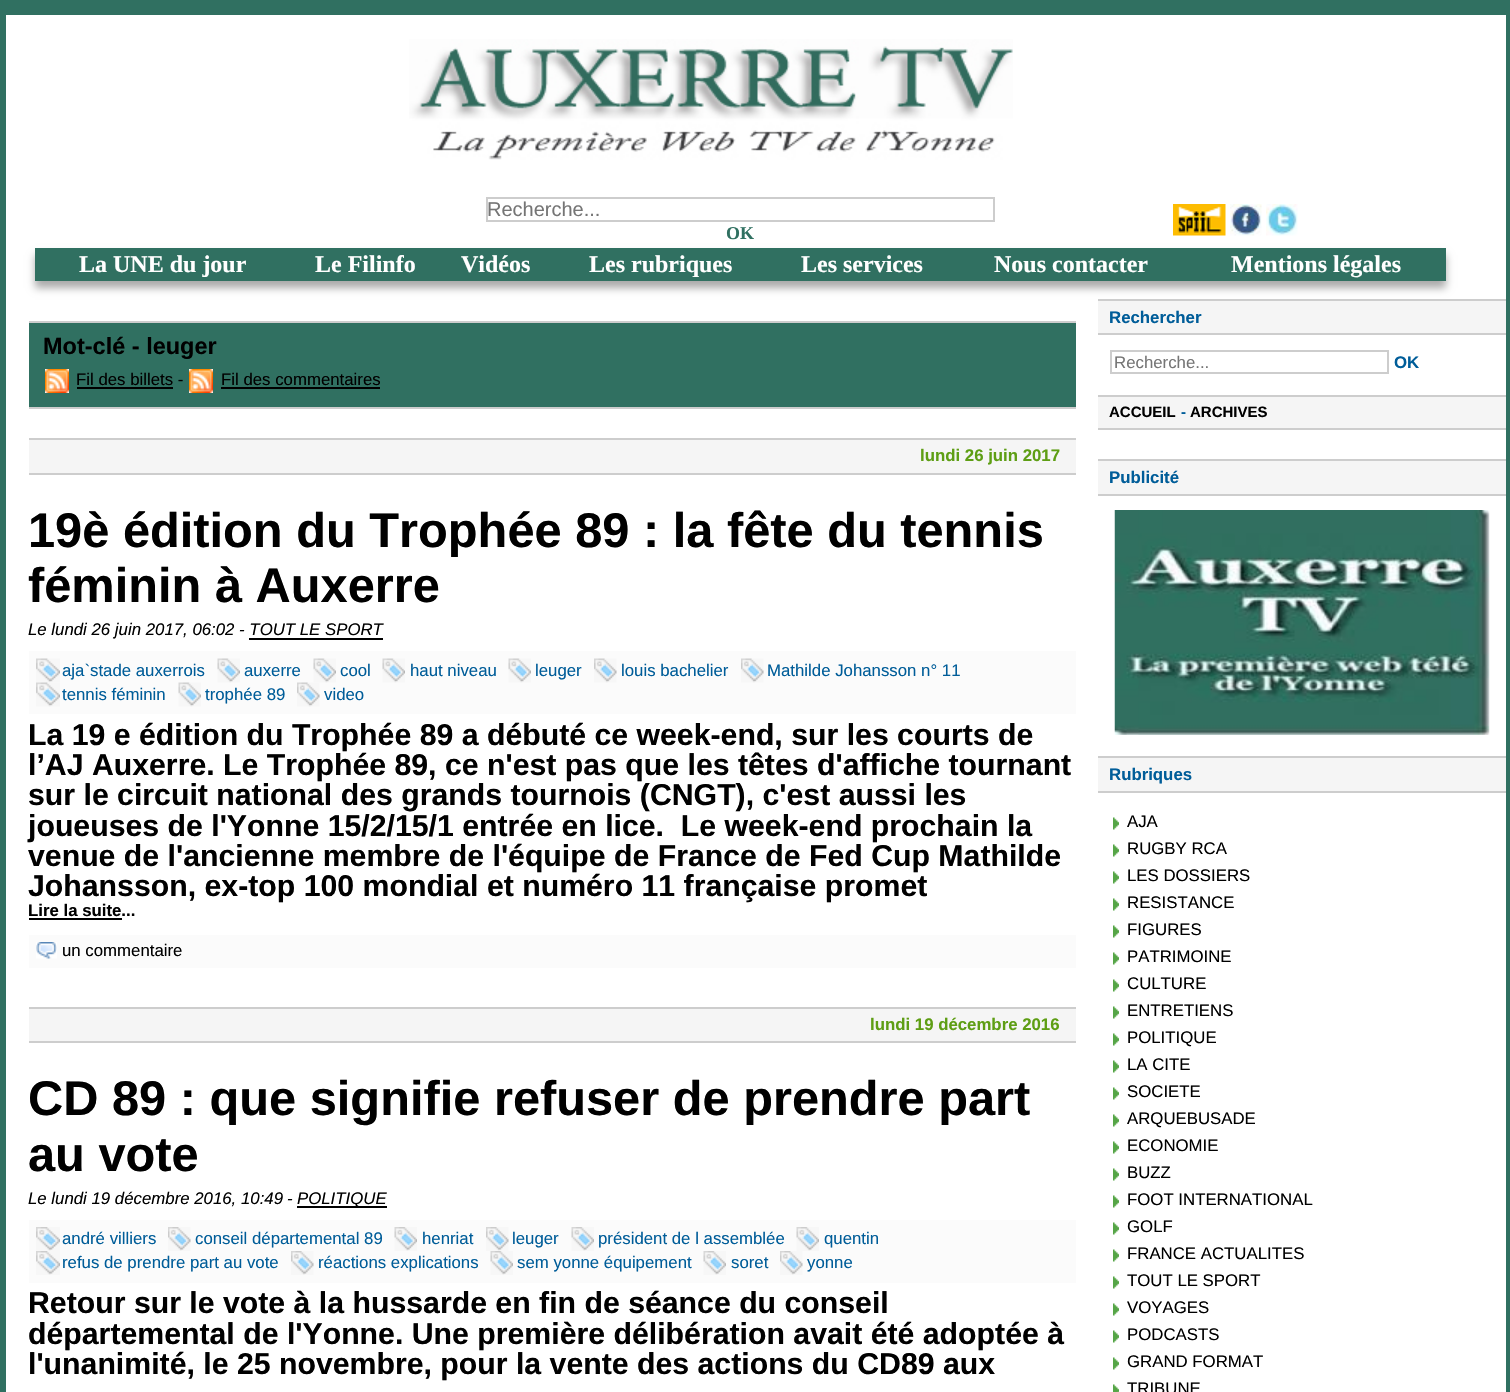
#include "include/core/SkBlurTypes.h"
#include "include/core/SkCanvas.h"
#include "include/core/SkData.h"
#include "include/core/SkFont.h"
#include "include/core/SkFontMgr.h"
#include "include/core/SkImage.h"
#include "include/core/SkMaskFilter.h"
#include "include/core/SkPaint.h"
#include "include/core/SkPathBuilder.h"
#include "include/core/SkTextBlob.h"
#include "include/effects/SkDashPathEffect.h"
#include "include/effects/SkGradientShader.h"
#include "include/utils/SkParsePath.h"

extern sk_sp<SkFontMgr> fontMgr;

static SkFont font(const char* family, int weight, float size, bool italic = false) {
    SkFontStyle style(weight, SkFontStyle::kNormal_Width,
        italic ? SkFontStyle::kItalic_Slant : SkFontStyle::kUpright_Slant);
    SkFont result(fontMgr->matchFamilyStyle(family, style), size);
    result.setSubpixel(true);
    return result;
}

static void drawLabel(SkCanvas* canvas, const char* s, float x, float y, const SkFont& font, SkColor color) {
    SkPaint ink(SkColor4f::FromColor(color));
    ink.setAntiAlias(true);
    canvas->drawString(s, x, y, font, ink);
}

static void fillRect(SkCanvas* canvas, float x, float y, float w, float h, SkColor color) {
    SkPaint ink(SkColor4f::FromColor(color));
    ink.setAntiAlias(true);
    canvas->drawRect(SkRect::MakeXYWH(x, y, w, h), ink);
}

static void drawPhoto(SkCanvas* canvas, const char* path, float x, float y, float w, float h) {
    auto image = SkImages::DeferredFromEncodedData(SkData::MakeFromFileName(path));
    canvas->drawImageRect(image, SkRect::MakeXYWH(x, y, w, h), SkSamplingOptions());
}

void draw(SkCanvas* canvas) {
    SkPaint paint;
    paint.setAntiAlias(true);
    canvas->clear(0xFF307061);
    fillRect(canvas, 6, 15, 1500, 1377, 0xFFFFFFFF);
    drawPhoto(canvas, "assets/img1.png", 409, 39, 604, 121);
    paint.setStroke(true);
    paint.setStrokeWidth(2);
    paint.setColor(0xFFCDCDCD);
    canvas->drawRect(SkRect::MakeXYWH(487, 198, 507, 23), paint);
    SkFont font1 = font("Liberation Sans", 400, 20);
    drawLabel(canvas, "Recherche...", 487, 216, font1, 0xFF757575);
    SkFont font2 = font("Liberation Serif", 700, 18);
    drawLabel(canvas, "OK", 726, 239, font2, 0xFF307061);
    drawPhoto(canvas, "assets/img2.png", 1173, 204, 53, 32);
    drawPhoto(canvas, "assets/img3.png", 1230, 204, 32, 32);
    drawPhoto(canvas, "assets/img4.png", 1266, 204, 32, 32);
    paint.setStroke(false);
    paint.setColor(0xFFAAAAAA);
    paint.setMaskFilter(SkMaskFilter::MakeBlur(kNormal_SkBlurStyle, 4));
    canvas->drawRect(SkRect::MakeXYWH(35, 255, 1411, 33), paint);
    paint.setMaskFilter(nullptr);
    fillRect(canvas, 35, 248, 1411, 33, 0xFF307061);
    SkFont font3 = font("Liberation Serif", 700, 24);
    drawLabel(canvas, "La UNE du jour", 79, 272, font3, 0xFFFFFFFF);
    drawLabel(canvas, "Le Filinfo", 315, 272, font3, 0xFFFFFFFF);
    drawLabel(canvas, "Vidéos", 461, 272, font3, 0xFFFFFFFF);
    drawLabel(canvas, "Les rubriques", 589, 272, font3, 0xFFFFFFFF);
    drawLabel(canvas, "Les services", 801, 272, font3, 0xFFFFFFFF);
    drawLabel(canvas, "Nous contacter", 994, 272, font3, 0xFFFFFFFF);
    drawLabel(canvas, "Mentions légales", 1231, 272, font3, 0xFFFFFFFF);
    fillRect(canvas, 29, 323, 1047, 84, 0xFF307061);
    fillRect(canvas, 29, 321, 1047, 2, 0xFFCDCDCD);
    fillRect(canvas, 29, 407, 1047, 2, 0xFFCDCDCD);
    SkFont font4 = font("Liberation Sans", 700, 23.5f);
    drawLabel(canvas, "Mot-clé - leuger", 43, 354, font4, 0xFF000000);
    drawPhoto(canvas, "assets/img5.png", 45, 369, 24, 24);
    SkFont font5 = font("Liberation Sans", 400, 16.8f);
    drawLabel(canvas, "Fil des billets -", 76, 385, font5, 0xFF000000);
    fillRect(canvas, 77, 387, 96, 2, 0xFF000000);
    drawPhoto(canvas, "assets/img5.png", 189, 369, 24, 24);
    drawLabel(canvas, "Fil des commentaires", 221, 385, font5, 0xFF000000);
    fillRect(canvas, 221, 387, 159, 2, 0xFF000000);
    fillRect(canvas, 29, 440, 1047, 33, 0xFFF5F5F5);
    fillRect(canvas, 29, 438, 1047, 2, 0xFFCDCDCD);
    fillRect(canvas, 29, 473, 1047, 2, 0xFFCDCDCD);
    SkFont font6 = font("Liberation Sans", 700, 16.8f);
    drawLabel(canvas, "lundi 26 juin 2017", 920, 461, font6, 0xFF5E9E14);
    SkFont font7 = font("Liberation Sans", 700, 48.75f);
    drawLabel(canvas, "19è édition du Trophée 89 : la fête du tennis", 28, 547, font7, 0xFF000000);
    drawLabel(canvas, "féminin à Auxerre", 28, 602, font7, 0xFF000000);
    SkFont font8 = font("Liberation Sans", 400, 16.8f, true);
    drawLabel(canvas, "Le lundi 26 juin 2017, 06:02 - TOUT LE SPORT", 28, 635, font8, 0xFF000000);
    fillRect(canvas, 249, 638, 134, 2, 0xFF000000);
    fillRect(canvas, 29, 651, 1047, 63, 0xFFFBFBFB);
    drawPhoto(canvas, "assets/img6.png", 36, 658, 24, 25);
    drawLabel(canvas, "aja`stade auxerrois", 62, 676, font5, 0xFF005D99);
    drawPhoto(canvas, "assets/img7.png", 217, 658, 23, 25);
    drawLabel(canvas, "auxerre", 244, 676, font5, 0xFF005D99);
    drawPhoto(canvas, "assets/img7.png", 313, 658, 23, 25);
    drawLabel(canvas, "cool", 340, 676, font5, 0xFF005D99);
    drawPhoto(canvas, "assets/img8.png", 382, 658, 23, 25);
    drawLabel(canvas, "haut niveau", 410, 676, font5, 0xFF005D99);
    drawPhoto(canvas, "assets/img7.png", 508, 658, 23, 25);
    drawLabel(canvas, "leuger", 535, 676, font5, 0xFF005D99);
    drawPhoto(canvas, "assets/img9.png", 594, 658, 23, 25);
    drawLabel(canvas, "louis bachelier", 621, 676, font5, 0xFF005D99);
    drawPhoto(canvas, "assets/img9.png", 741, 658, 23, 25);
    drawLabel(canvas, "Mathilde Johansson n° 11", 767, 676, font5, 0xFF005D99);
    drawPhoto(canvas, "assets/img10.png", 36, 682, 24, 25);
    drawLabel(canvas, "tennis féminin", 62, 700, font5, 0xFF005D99);
    drawPhoto(canvas, "assets/img7.png", 178, 682, 23, 25);
    drawLabel(canvas, "trophée 89", 205, 700, font5, 0xFF005D99);
    drawPhoto(canvas, "assets/img11.png", 297, 682, 23, 25);
    drawLabel(canvas, "video", 324, 700, font5, 0xFF005D99);
    SkFont font9 = font("Liberation Sans", 700, 30.25f);
    drawLabel(canvas, "La 19 e édition du Trophée 89 a débuté ce week-end, sur les courts de", 28, 745, font9, 0xFF000000);
    drawLabel(canvas, "l’AJ Auxerre. Le Trophée 89, ce n'est pas que les têtes d'affiche tournant", 28, 775, font9, 0xFF000000);
    drawLabel(canvas, "sur le circuit national des grands tournois (CNGT), c'est aussi les", 28, 805, font9, 0xFF000000);
    drawLabel(canvas, "joueuses de l'Yonne 15/2/15/1 entrée en lice.  Le week-end prochain la", 28, 836, font9, 0xFF000000);
    drawLabel(canvas, "venue de l'ancienne membre de l'équipe de France de Fed Cup Mathilde", 28, 866, font9, 0xFF000000);
    drawLabel(canvas, "Johansson, ex-top 100 mondial et numéro 11 française promet", 28, 896, font9, 0xFF000000);
    drawLabel(canvas, "Lire la suite...", 28, 916, font6, 0xFF000000);
    fillRect(canvas, 29, 918, 93, 2, 0xFF000000);
    fillRect(canvas, 29, 935, 1047, 33, 0xFFFBFBFB);
    drawPhoto(canvas, "assets/img12.png", 36, 942, 21, 17);
    drawLabel(canvas, "un commentaire", 62, 956, font5, 0xFF000000);
    fillRect(canvas, 29, 1009, 1047, 32, 0xFFF5F5F5);
    fillRect(canvas, 29, 1007, 1047, 2, 0xFFCDCDCD);
    fillRect(canvas, 29, 1041, 1047, 2, 0xFFCDCDCD);
    drawLabel(canvas, "lundi 19 décembre 2016", 870, 1030, font6, 0xFF5E9E14);
    drawLabel(canvas, "CD 89 : que signifie refuser de prendre part", 28, 1115, font7, 0xFF000000);
    drawLabel(canvas, "au vote", 28, 1171, font7, 0xFF000000);
    drawLabel(canvas, "Le lundi 19 décembre 2016, 10:49", 28, 1204, font8, 0xFF000000);
    drawLabel(canvas, "-", 287, 1204, font8, 0xFF000000);
    fillRect(canvas, 297, 1206, 90, 2, 0xFF000000);
    drawLabel(canvas, "POLITIQUE", 297, 1204, font8, 0xFF000000);
    fillRect(canvas, 29, 1220, 1047, 63, 0xFFFBFBFB);
    drawPhoto(canvas, "assets/img13.png", 36, 1227, 24, 24);
    drawLabel(canvas, "andré villiers", 62, 1244, font5, 0xFF005D99);
    drawPhoto(canvas, "assets/img14.png", 168, 1227, 23, 24);
    drawLabel(canvas, "conseil départemental 89", 195, 1244, font5, 0xFF005D99);
    drawPhoto(canvas, "assets/img15.png", 394, 1227, 23, 24);
    drawLabel(canvas, "henriat", 422, 1244, font5, 0xFF005D99);
    drawPhoto(canvas, "assets/img16.png", 486, 1227, 23, 24);
    drawLabel(canvas, "leuger", 512, 1244, font5, 0xFF005D99);
    drawPhoto(canvas, "assets/img15.png", 571, 1227, 23, 24);
    drawLabel(canvas, "président de l assemblée", 598, 1244, font5, 0xFF005D99);
    drawPhoto(canvas, "assets/img17.png", 796, 1227, 23, 24);
    drawLabel(canvas, "quentin", 824, 1244, font5, 0xFF005D99);
    drawPhoto(canvas, "assets/img13.png", 36, 1251, 24, 24);
    drawLabel(canvas, "refus de prendre part au vote", 62, 1268, font5, 0xFF005D99);
    drawPhoto(canvas, "assets/img16.png", 291, 1251, 23, 24);
    drawLabel(canvas, "réactions explications", 318, 1268, font5, 0xFF005D99);
    drawPhoto(canvas, "assets/img17.png", 490, 1251, 23, 24);
    drawLabel(canvas, "sem yonne équipement", 517, 1268, font5, 0xFF005D99);
    drawPhoto(canvas, "assets/img15.png", 703, 1251, 23, 24);
    drawLabel(canvas, "soret", 731, 1268, font5, 0xFF005D99);
    drawPhoto(canvas, "assets/img14.png", 780, 1251, 23, 24);
    drawLabel(canvas, "yonne", 807, 1268, font5, 0xFF005D99);
    drawLabel(canvas, "Retour sur le vote à la hussarde en fin de séance du conseil", 28, 1313, font9, 0xFF000000);
    drawLabel(canvas, "départemental de l'Yonne. Une première délibération avait été adoptée à", 28, 1344, font9, 0xFF000000);
    drawLabel(canvas, "l'unanimité, le 25 novembre, pour la vente des actions du CD89 aux", 28, 1374, font9, 0xFF000000);
    fillRect(canvas, 1098, 301, 408, 32, 0xFFF5F5F5);
    fillRect(canvas, 1098, 299, 408, 2, 0xFFCDCDCD);
    fillRect(canvas, 1098, 333, 408, 2, 0xFFCDCDCD);
    drawLabel(canvas, "Rechercher", 1109, 323, font6, 0xFF005D99);
    paint.setStroke(true);
    paint.setColor(0xFFCDCDCD);
    canvas->drawRect(SkRect::MakeXYWH(1111, 351, 277, 22), paint);
    drawLabel(canvas, "Recherche...", 1114, 368, font5, 0xFF757575);
    drawLabel(canvas, "OK", 1394, 368, font6, 0xFF005D99);
    fillRect(canvas, 1098, 397, 408, 31, 0xFFF5F5F5);
    fillRect(canvas, 1098, 395, 408, 2, 0xFFCDCDCD);
    fillRect(canvas, 1098, 428, 408, 2, 0xFFCDCDCD);
    SkFont font10 = font("Liberation Sans", 700, 15);
    drawLabel(canvas, "ACCUEIL", 1109, 417, font10, 0xFF000000);
    drawLabel(canvas, "-", 1181, 417, font10, 0xFF005D99);
    drawLabel(canvas, "ARCHIVES", 1190, 417, font10, 0xFF000000);
    fillRect(canvas, 1098, 461, 408, 33, 0xFFF5F5F5);
    fillRect(canvas, 1098, 459, 408, 2, 0xFFCDCDCD);
    fillRect(canvas, 1098, 494, 408, 2, 0xFFCDCDCD);
    drawLabel(canvas, "Publicité", 1109, 483, font6, 0xFF005D99);
    drawPhoto(canvas, "assets/img18.png", 1114, 510, 376, 225);
    fillRect(canvas, 1098, 758, 408, 33, 0xFFF5F5F5);
    fillRect(canvas, 1098, 756, 408, 2, 0xFFCDCDCD);
    fillRect(canvas, 1098, 791, 408, 2, 0xFFCDCDCD);
    drawLabel(canvas, "Rubriques", 1109, 780, font6, 0xFF005D99);
    drawPhoto(canvas, "assets/img19.png", 1113, 817, 6, 13);
    drawLabel(canvas, "AJA", 1127, 827, font5, 0xFF000000);
    drawPhoto(canvas, "assets/img19.png", 1113, 844, 6, 13);
    drawLabel(canvas, "RUGBY RCA", 1127, 854, font5, 0xFF000000);
    drawPhoto(canvas, "assets/img19.png", 1113, 871, 6, 13);
    drawLabel(canvas, "LES DOSSIERS", 1127, 881, font5, 0xFF000000);
    drawPhoto(canvas, "assets/img19.png", 1113, 898, 6, 13);
    drawLabel(canvas, "RESISTANCE", 1127, 908, font5, 0xFF000000);
    drawPhoto(canvas, "assets/img19.png", 1113, 925, 6, 13);
    drawLabel(canvas, "FIGURES", 1127, 935, font5, 0xFF000000);
    drawPhoto(canvas, "assets/img19.png", 1113, 952, 6, 13);
    drawLabel(canvas, "PATRIMOINE", 1127, 962, font5, 0xFF000000);
    drawPhoto(canvas, "assets/img19.png", 1113, 979, 6, 13);
    drawLabel(canvas, "CULTURE", 1127, 989, font5, 0xFF000000);
    drawPhoto(canvas, "assets/img19.png", 1113, 1006, 6, 13);
    drawLabel(canvas, "ENTRETIENS", 1127, 1016, font5, 0xFF000000);
    drawPhoto(canvas, "assets/img19.png", 1113, 1033, 6, 13);
    drawLabel(canvas, "POLITIQUE", 1127, 1043, font5, 0xFF000000);
    drawPhoto(canvas, "assets/img19.png", 1113, 1060, 6, 13);
    drawLabel(canvas, "LA CITE", 1127, 1070, font5, 0xFF000000);
    drawPhoto(canvas, "assets/img19.png", 1113, 1087, 6, 13);
    drawLabel(canvas, "SOCIETE", 1127, 1097, font5, 0xFF000000);
    drawPhoto(canvas, "assets/img19.png", 1113, 1114, 6, 13);
    drawLabel(canvas, "ARQUEBUSADE", 1127, 1124, font5, 0xFF000000);
    drawPhoto(canvas, "assets/img19.png", 1113, 1141, 6, 13);
    drawLabel(canvas, "ECONOMIE", 1127, 1151, font5, 0xFF000000);
    drawPhoto(canvas, "assets/img19.png", 1113, 1168, 6, 13);
    drawLabel(canvas, "BUZZ", 1127, 1178, font5, 0xFF000000);
    drawPhoto(canvas, "assets/img19.png", 1113, 1195, 6, 13);
    drawLabel(canvas, "FOOT INTERNATIONAL", 1127, 1205, font5, 0xFF000000);
    drawPhoto(canvas, "assets/img19.png", 1113, 1222, 6, 13);
    drawLabel(canvas, "GOLF", 1127, 1232, font5, 0xFF000000);
    drawPhoto(canvas, "assets/img19.png", 1113, 1249, 6, 13);
    drawLabel(canvas, "FRANCE ACTUALITES", 1127, 1259, font5, 0xFF000000);
    drawPhoto(canvas, "assets/img19.png", 1113, 1276, 6, 13);
    drawLabel(canvas, "TOUT LE SPORT", 1127, 1286, font5, 0xFF000000);
    drawPhoto(canvas, "assets/img19.png", 1113, 1303, 6, 13);
    drawLabel(canvas, "VOYAGES", 1127, 1313, font5, 0xFF000000);
    drawPhoto(canvas, "assets/img19.png", 1113, 1330, 6, 13);
    drawLabel(canvas, "PODCASTS", 1127, 1340, font5, 0xFF000000);
    drawPhoto(canvas, "assets/img19.png", 1113, 1357, 6, 13);
    drawLabel(canvas, "GRAND FORMAT", 1127, 1367, font5, 0xFF000000);
    drawPhoto(canvas, "assets/img20.png", 1113, 1384, 6, 8);
    drawLabel(canvas, "TRIBUNE", 1127, 1394, font5, 0xFF000000);
}
